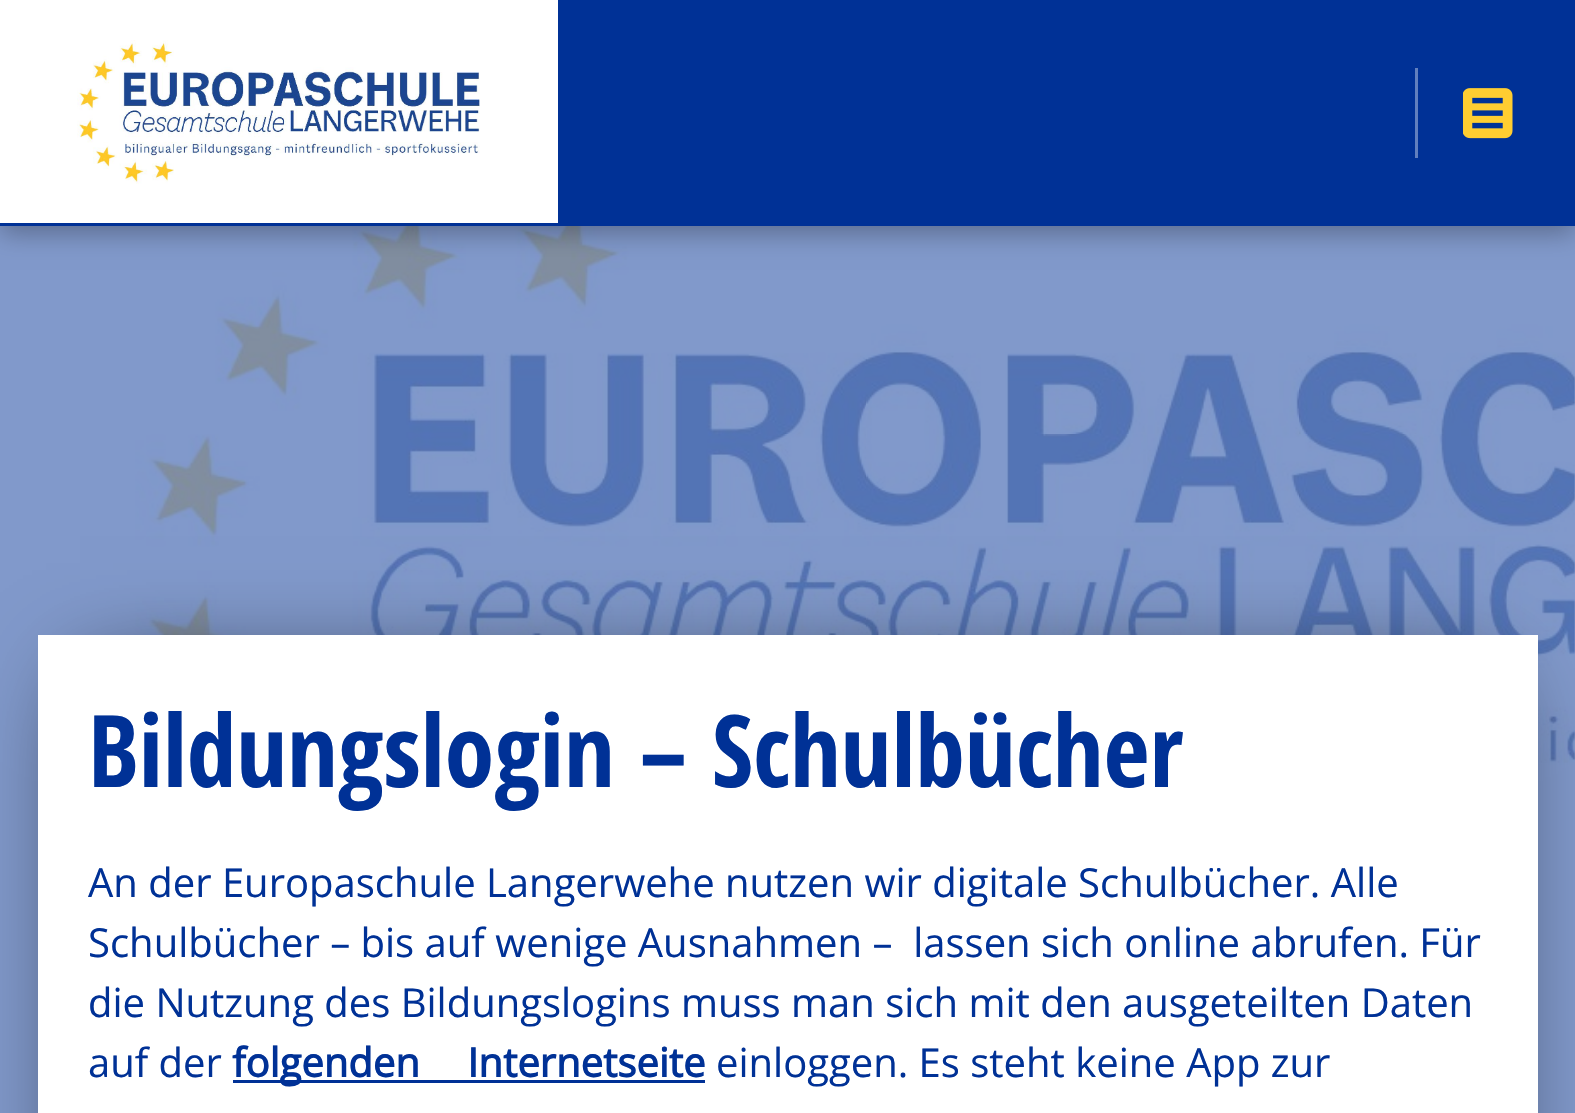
#include "include/core/SkBlurTypes.h"
#include "include/core/SkCanvas.h"
#include "include/core/SkData.h"
#include "include/core/SkFont.h"
#include "include/core/SkFontMgr.h"
#include "include/core/SkImage.h"
#include "include/core/SkMaskFilter.h"
#include "include/core/SkPaint.h"
#include "include/core/SkPathBuilder.h"
#include "include/core/SkTextBlob.h"
#include "include/effects/SkDashPathEffect.h"
#include "include/effects/SkGradientShader.h"
#include "include/utils/SkParsePath.h"

extern sk_sp<SkFontMgr> fontMgr;

static SkFont font(const char* family, int weight, float size, bool italic = false) {
    SkFontStyle style(weight, SkFontStyle::kNormal_Width,
        italic ? SkFontStyle::kItalic_Slant : SkFontStyle::kUpright_Slant);
    SkFont result(fontMgr->matchFamilyStyle(family, style), size);
    result.setSubpixel(true);
    return result;
}

static void drawLabel(SkCanvas* canvas, const char* s, float x, float y, const SkFont& font, SkColor color) {
    SkPaint ink(SkColor4f::FromColor(color));
    ink.setAntiAlias(true);
    canvas->drawString(s, x, y, font, ink);
}

static void drawTracked(SkCanvas* canvas, const char* s, float x, float y, const SkFont& font, const SkPaint& ink, float letter, float word) {
    std::vector<SkGlyphID> glyphs(font.countText(s, strlen(s), SkTextEncoding::kUTF8));
    std::vector<float> xs(glyphs.size());
    font.textToGlyphs(s, strlen(s), SkTextEncoding::kUTF8, glyphs);
    font.getXPos(glyphs, xs, x);
    float extra = 0;
    for (size_t i = 0; i < glyphs.size(); i++) {
        xs[i] += extra;
        extra += letter + word * (glyphs[i] == font.unicharToGlyph(' '));
    }
    canvas->drawTextBlob(SkTextBlob::MakeFromPosHGlyphs(glyphs, xs, y, font), 0, 0, ink);
}

static void fillRect(SkCanvas* canvas, float x, float y, float w, float h, SkColor color) {
    SkPaint ink(SkColor4f::FromColor(color));
    ink.setAntiAlias(true);
    canvas->drawRect(SkRect::MakeXYWH(x, y, w, h), ink);
}

static void drawPhoto(SkCanvas* canvas, const char* path, float x, float y, float w, float h) {
    auto image = SkImages::DeferredFromEncodedData(SkData::MakeFromFileName(path));
    canvas->drawImageRect(image, SkRect::MakeXYWH(x, y, w, h), SkSamplingOptions());
}

void draw(SkCanvas* canvas) {
    SkPaint paint;
    paint.setAntiAlias(true);
    canvas->clear(0xFF8199CB);
    drawPhoto(canvas, "assets/img3.png", 135, 226, 1440, 700);
    paint.setColor(0x4D000000);
    paint.setMaskFilter(SkMaskFilter::MakeBlur(kNormal_SkBlurStyle, 12.5f));
    canvas->drawRect(SkRect::MakeXYWH(0, 8, 1575, 225), paint);
    paint.setMaskFilter(nullptr);
    fillRect(canvas, 558, 0, 1017, 223, 0xFF003196);
    fillRect(canvas, 0, 0, 558, 223, 0xFFFFFFFF);
    drawPhoto(canvas, "assets/img1.png", 77, 40, 403, 144);
    fillRect(canvas, 1415, 68, 3, 90, 0xFF617FBE);
    drawPhoto(canvas, "assets/img2.png", 1463, 88, 50, 51);
    fillRect(canvas, 0, 223, 1575, 3, 0xFF003196);
    paint.setColor(0xBF000000);
    paint.setMaskFilter(SkMaskFilter::MakeBlur(kNormal_SkBlurStyle, 47.5f));
    canvas->drawRect(SkRect::MakeXYWH(80, 678, 1415, 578), paint);
    paint.setMaskFilter(nullptr);
    fillRect(canvas, 38, 635, 1500, 478, 0xFFFFFFFF);
    SkFont font1 = font("Open Sans Condensed", 700, 100);
    drawLabel(canvas, "Bildungslogin – Schulbücher", 88, 787, font1, 0xFF003196);
    SkFont font2 = font("Open Sans", 400, 40);
    drawLabel(canvas, "An der Europaschule Langerwehe nutzen wir digitale Schulbücher. Alle", 88, 897, font2, 0xFF003196);
    drawLabel(canvas, "Schulbücher – bis auf wenige Ausnahmen –  lassen sich online abrufen. Für", 88, 957, font2, 0xFF003196);
    drawLabel(canvas, "die Nutzung des Bildungslogins muss man sich mit den ausgeteilten Daten", 88, 1017, font2, 0xFF003196);
    drawLabel(canvas, "auf der", 88, 1077, font2, 0xFF003196);
    fillRect(canvas, 233, 1080, 472, 3, 0xFF003196);
    SkFont font3 = font("Open Sans", 700, 40);
    paint.setColor(0xFF003196);
    drawTracked(canvas, "folgenden Internetseite", 232, 1077, font3, paint, 0, 37);
    drawLabel(canvas, "einloggen. Es steht keine App zur", 716, 1077, font2, 0xFF003196);
}
